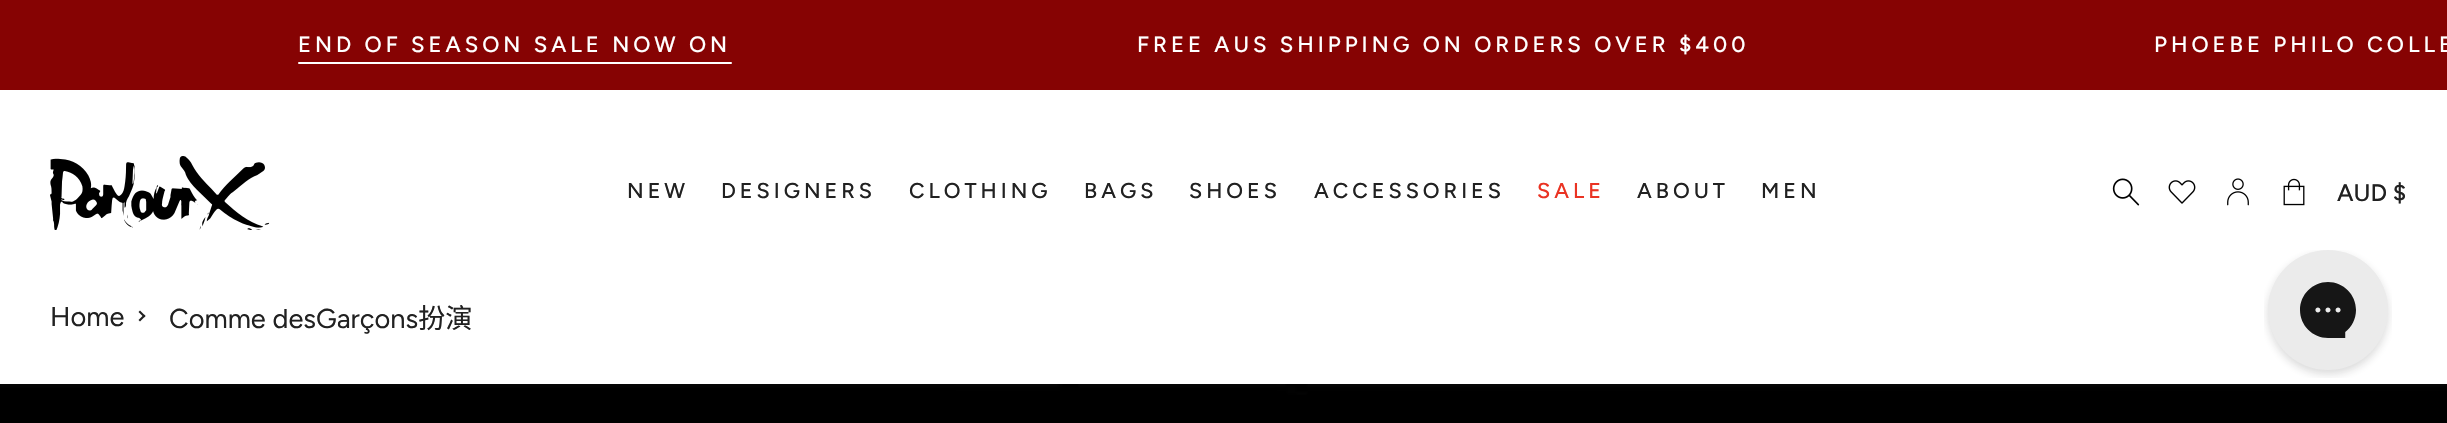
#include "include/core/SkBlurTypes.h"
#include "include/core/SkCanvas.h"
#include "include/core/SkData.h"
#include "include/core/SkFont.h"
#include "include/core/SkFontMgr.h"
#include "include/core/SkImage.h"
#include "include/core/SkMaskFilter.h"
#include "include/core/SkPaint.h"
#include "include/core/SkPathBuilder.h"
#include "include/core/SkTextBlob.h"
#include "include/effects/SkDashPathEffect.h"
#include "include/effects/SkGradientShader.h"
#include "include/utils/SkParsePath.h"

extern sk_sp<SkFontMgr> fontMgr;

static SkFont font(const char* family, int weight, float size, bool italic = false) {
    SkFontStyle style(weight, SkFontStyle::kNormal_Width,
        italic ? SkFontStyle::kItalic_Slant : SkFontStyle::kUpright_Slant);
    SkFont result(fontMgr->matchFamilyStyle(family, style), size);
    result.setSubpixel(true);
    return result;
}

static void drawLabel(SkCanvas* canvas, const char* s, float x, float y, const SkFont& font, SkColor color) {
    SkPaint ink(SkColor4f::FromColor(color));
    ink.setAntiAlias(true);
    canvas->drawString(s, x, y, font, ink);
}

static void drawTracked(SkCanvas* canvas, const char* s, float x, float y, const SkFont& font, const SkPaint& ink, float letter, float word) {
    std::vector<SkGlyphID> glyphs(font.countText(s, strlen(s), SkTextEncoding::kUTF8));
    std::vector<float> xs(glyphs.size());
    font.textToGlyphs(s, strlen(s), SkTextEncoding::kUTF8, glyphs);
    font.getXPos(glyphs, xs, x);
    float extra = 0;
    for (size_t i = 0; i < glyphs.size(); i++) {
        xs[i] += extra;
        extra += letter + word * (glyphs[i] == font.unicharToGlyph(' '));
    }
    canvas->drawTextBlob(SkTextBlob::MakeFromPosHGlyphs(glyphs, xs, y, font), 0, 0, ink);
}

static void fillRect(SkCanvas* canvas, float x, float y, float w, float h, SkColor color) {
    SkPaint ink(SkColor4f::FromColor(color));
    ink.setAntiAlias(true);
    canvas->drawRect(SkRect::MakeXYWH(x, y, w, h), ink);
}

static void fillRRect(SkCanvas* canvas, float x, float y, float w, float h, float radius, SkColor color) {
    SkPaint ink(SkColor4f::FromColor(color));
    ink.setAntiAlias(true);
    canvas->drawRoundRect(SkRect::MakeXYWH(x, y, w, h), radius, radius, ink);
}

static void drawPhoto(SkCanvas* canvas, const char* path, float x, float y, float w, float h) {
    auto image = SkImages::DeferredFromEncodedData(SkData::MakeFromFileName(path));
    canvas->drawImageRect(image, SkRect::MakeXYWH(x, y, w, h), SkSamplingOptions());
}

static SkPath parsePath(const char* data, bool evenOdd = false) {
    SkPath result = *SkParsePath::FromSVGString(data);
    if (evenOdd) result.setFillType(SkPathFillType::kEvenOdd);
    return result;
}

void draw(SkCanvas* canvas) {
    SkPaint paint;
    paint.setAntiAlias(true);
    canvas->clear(0xFFFFFFFF);
    fillRect(canvas, 0, 0, 2447, 90, 0xFF860303);
    SkFont font1 = font("Figtree", 500, 22);
    paint.setColor(0xFFFFFFFF);
    drawTracked(canvas, "END OF SEASON SALE NOW ON", 298, 52, font1, paint, 4, 0);
    fillRRect(canvas, 298, 62, 434, 2, 1, 0xFFFFFFFF);
    drawTracked(canvas, "FREE AUS SHIPPING ON ORDERS OVER $400", 1137, 52, font1, paint, 4, 0);
    drawTracked(canvas, "PHOEBE PHILO COLLE", 2154, 52, font1, paint, 4, 0);
    drawPhoto(canvas, "assets/img1.png", 50, 156, 220, 74);
    SkFont font2 = font("Figtree", 500, 21.5f);
    paint.setColor(0xFF212121);
    drawTracked(canvas, "NEW", 627, 198, font2, paint, 4, 0);
    drawTracked(canvas, "DESIGNERS", 721, 198, font2, paint, 4, 0);
    drawTracked(canvas, "CLOTHING", 909, 198, font2, paint, 4, 0);
    drawTracked(canvas, "BAGS", 1084, 198, font2, paint, 4, 0);
    drawTracked(canvas, "SHOES", 1189, 198, font2, paint, 4, 0);
    drawTracked(canvas, "ACCESSORIES", 1314, 198, font2, paint, 4, 0);
    paint.setColor(0xFFEA3323);
    drawTracked(canvas, "SALE", 1537, 198, font2, paint, 4, 0);
    paint.setColor(0xFF212121);
    drawTracked(canvas, "ABOUT", 1637, 198, font2, paint, 4, 0);
    drawTracked(canvas, "MEN", 1761, 198, font2, paint, 4, 0);
    drawPhoto(canvas, "assets/img2.png", 2112, 178, 28, 28);
    drawPhoto(canvas, "assets/img3.png", 2168, 180, 28, 24);
    drawPhoto(canvas, "assets/img4.png", 2227, 178, 22, 28);
    drawPhoto(canvas, "assets/img5.png", 2283, 178, 22, 28);
    SkFont font3 = font("Figtree", 500, 24);
    drawLabel(canvas, "AUD $", 2337, 201, font3, 0xFF212121);
    SkFont font4 = font("Figtree", 400, 27.25f);
    drawLabel(canvas, "Home", 50, 326, font4, 0xFF212121);
    canvas->drawPath(parsePath("M140 310.5L145.5 316L144 317.5L138.5 312Z"), paint);
    canvas->drawPath(parsePath("M144 314.5L145.5 316L140 321.5L138.5 320Z"), paint);
    drawLabel(canvas, "Comme desGarçons", 169, 328, font4, 0xFF212121);
    SkFont font5 = font("Noto Sans CJK SC", 400, 27.25f);
    drawLabel(canvas, "扮演", 418, 328, font5, 0xFF212121);
    drawPhoto(canvas, "assets/img6.png", 0, 384, 2447, 39);
    drawPhoto(canvas, "assets/img7.png", 2264, 250, 128, 128);
}
